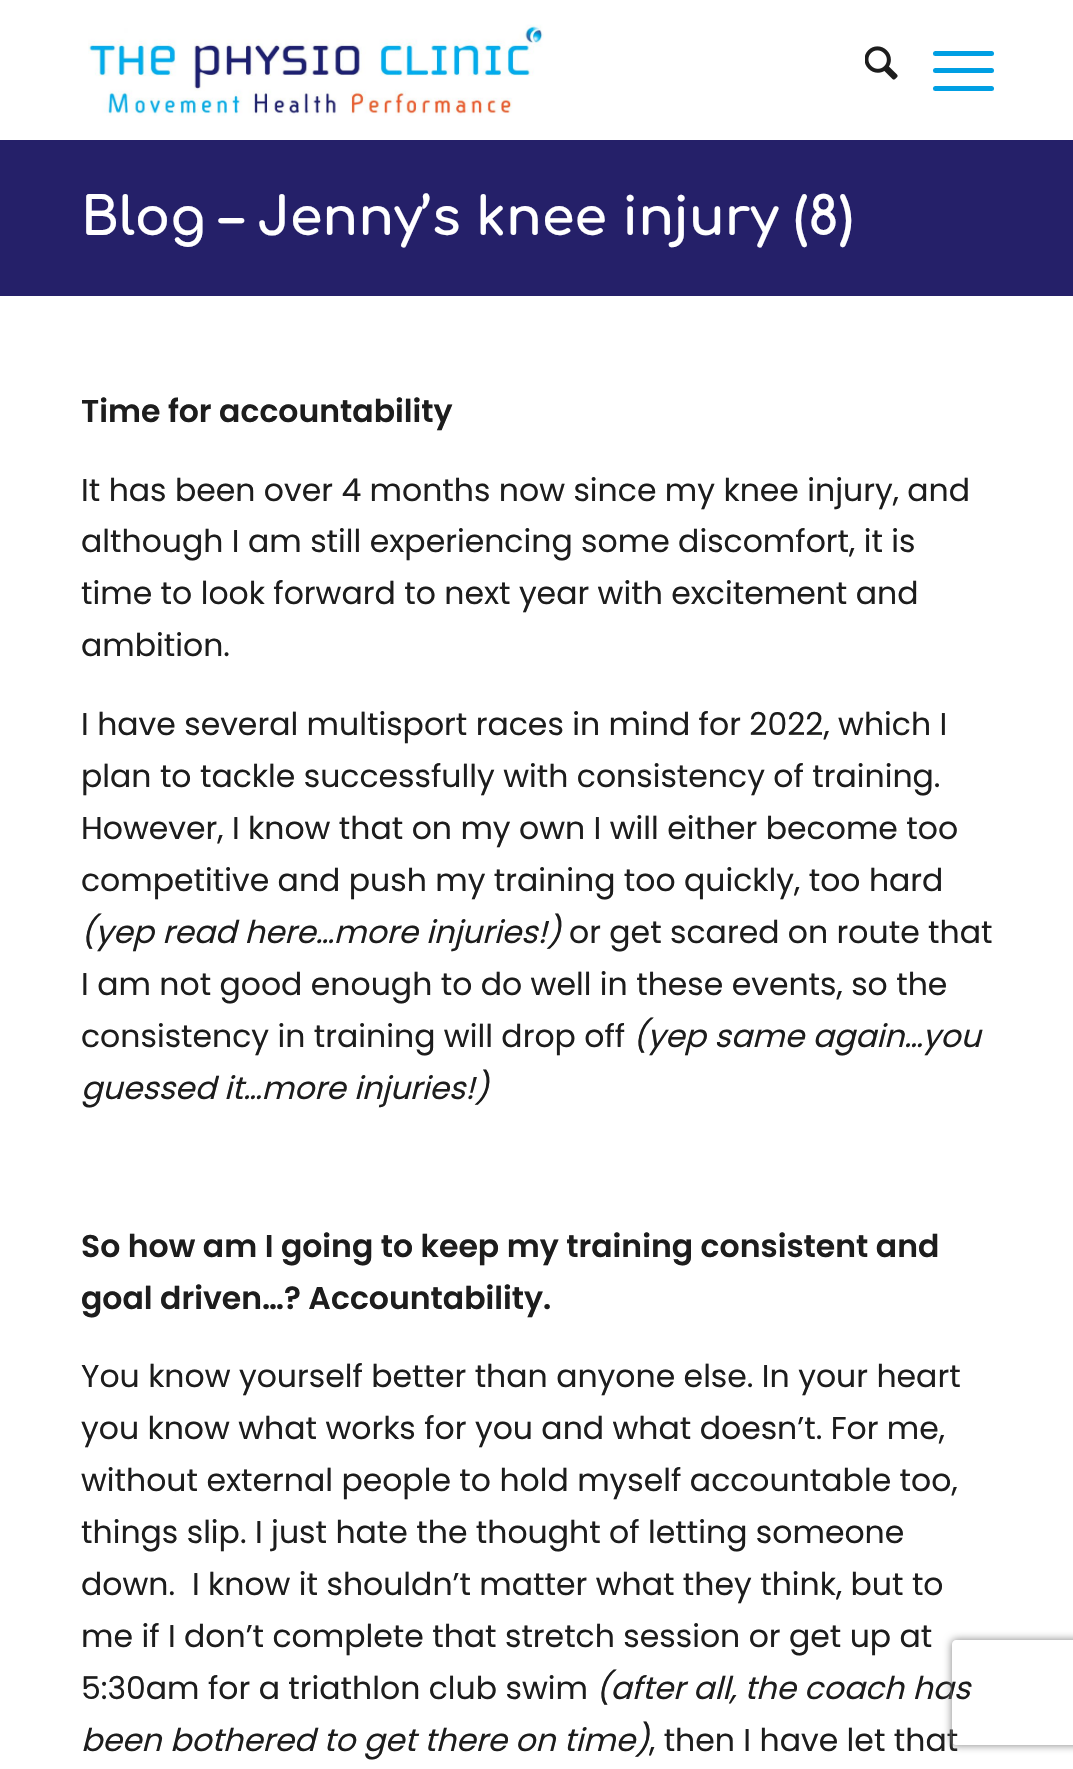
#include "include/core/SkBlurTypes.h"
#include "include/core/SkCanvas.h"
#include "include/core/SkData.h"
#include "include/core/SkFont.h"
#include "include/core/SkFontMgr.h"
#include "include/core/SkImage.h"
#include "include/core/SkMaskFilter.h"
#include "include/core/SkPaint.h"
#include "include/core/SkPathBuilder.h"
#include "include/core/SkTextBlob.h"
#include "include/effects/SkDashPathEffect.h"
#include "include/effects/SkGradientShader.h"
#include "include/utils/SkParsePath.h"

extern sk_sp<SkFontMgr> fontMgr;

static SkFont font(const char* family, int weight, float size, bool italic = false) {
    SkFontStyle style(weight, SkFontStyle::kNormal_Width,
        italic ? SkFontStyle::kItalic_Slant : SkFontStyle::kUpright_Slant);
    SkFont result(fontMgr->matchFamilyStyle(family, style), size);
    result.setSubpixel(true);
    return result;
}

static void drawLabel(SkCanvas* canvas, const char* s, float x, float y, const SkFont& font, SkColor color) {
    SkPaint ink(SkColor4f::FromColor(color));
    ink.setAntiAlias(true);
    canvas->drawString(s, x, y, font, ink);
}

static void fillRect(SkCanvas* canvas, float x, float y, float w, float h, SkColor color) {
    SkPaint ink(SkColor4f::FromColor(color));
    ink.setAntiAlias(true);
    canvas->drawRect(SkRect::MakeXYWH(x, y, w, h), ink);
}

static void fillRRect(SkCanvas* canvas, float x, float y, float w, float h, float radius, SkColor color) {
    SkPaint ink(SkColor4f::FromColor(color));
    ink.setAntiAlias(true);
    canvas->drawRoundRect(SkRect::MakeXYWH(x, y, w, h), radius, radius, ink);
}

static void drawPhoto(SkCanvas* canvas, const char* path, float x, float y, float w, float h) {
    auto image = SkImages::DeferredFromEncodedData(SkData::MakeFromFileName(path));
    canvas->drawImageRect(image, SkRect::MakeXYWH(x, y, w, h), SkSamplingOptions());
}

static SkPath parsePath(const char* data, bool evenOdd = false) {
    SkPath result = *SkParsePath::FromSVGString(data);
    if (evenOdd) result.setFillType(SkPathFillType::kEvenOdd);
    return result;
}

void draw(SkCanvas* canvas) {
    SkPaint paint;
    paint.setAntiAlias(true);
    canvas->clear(0xFFFFFFFF);
    drawPhoto(canvas, "assets/img1.png", 88, 24, 456, 92);
    drawPhoto(canvas, "assets/img2.png", 865, 46, 33, 34);
    fillRRect(canvas, 933, 68, 61, 5, 2.5f, 0xFF009FE3);
    fillRRect(canvas, 933, 51, 61, 5, 2.5f, 0xFF009FE3);
    fillRRect(canvas, 933, 86, 61, 5, 2.5f, 0xFF009FE3);
    fillRect(canvas, 0, 140, 1073, 156, 0xFF252069);
    SkFont font1 = font("Comfortaa", 700, 52.5f);
    drawLabel(canvas, "Blog – Jenny’s knee injury (8)", 81, 235, font1, 0xFFFFFFFF);
    SkFont font2 = font("Poppins", 600, 31.5f);
    drawLabel(canvas, "Time for accountability", 81, 422, font2, 0xFF1D1D1D);
    SkFont font3 = font("Poppins", 400, 31.5f);
    drawLabel(canvas, "It has been over 4 months now since my knee injury, and", 81, 501, font3, 0xFF1D1D1D);
    drawLabel(canvas, "although I am still experiencing some discomfort, it is", 81, 552, font3, 0xFF1D1D1D);
    drawLabel(canvas, "time to look forward to next year with excitement and", 81, 604, font3, 0xFF1D1D1D);
    drawLabel(canvas, "ambition.", 81, 656, font3, 0xFF1D1D1D);
    drawLabel(canvas, "I have several multisport races in mind for 2022, which I", 81, 735, font3, 0xFF1D1D1D);
    drawLabel(canvas, "plan to tackle successfully with consistency of training.", 81, 787, font3, 0xFF1D1D1D);
    drawLabel(canvas, "However, I know that on my own I will either become too", 81, 839, font3, 0xFF1D1D1D);
    drawLabel(canvas, "competitive and push my training too quickly, too hard", 81, 891, font3, 0xFF1D1D1D);
    SkFont font4 = font("Poppins", 400, 31.5f, true);
    drawLabel(canvas, "(yep read here…more injuries!)", 81, 943, font4, 0xFF1D1D1D);
    drawLabel(canvas, "or get scared on route that", 569, 943, font3, 0xFF1D1D1D);
    drawLabel(canvas, "I am not good enough to do well in these events, so the", 81, 995, font3, 0xFF1D1D1D);
    drawLabel(canvas, "consistency in training will drop off", 81, 1047, font3, 0xFF1D1D1D);
    drawLabel(canvas, "(yep same again…you", 633, 1047, font4, 0xFF1D1D1D);
    drawLabel(canvas, "guessed it…more injuries!)", 81, 1099, font4, 0xFF1D1D1D);
    drawLabel(canvas, "So how am I going to keep my training consistent and", 81, 1257, font2, 0xFF1D1D1D);
    drawLabel(canvas, "goal driven…? Accountability.", 81, 1309, font2, 0xFF1D1D1D);
    drawLabel(canvas, "You know yourself better than anyone else. In your heart", 81, 1387, font3, 0xFF1D1D1D);
    drawLabel(canvas, "you know what works for you and what doesn’t. For me,", 81, 1439, font3, 0xFF1D1D1D);
    drawLabel(canvas, "without external people to hold myself accountable too,", 81, 1491, font3, 0xFF1D1D1D);
    drawLabel(canvas, "things slip. I just hate the thought of letting someone", 81, 1543, font3, 0xFF1D1D1D);
    drawLabel(canvas, "down.  I know it shouldn’t matter what they think, but to", 81, 1595, font3, 0xFF1D1D1D);
    drawLabel(canvas, "me if I don’t complete that stretch session or get up at", 81, 1647, font3, 0xFF1D1D1D);
    drawLabel(canvas, "5:30am for a triathlon club swim", 81, 1699, font3, 0xFF1D1D1D);
    drawLabel(canvas, "(after all, the coach has", 596, 1699, font4, 0xFF1D1D1D);
    drawLabel(canvas, "been bothered to get there on time)", 81, 1751, font4, 0xFF1D1D1D);
    drawLabel(canvas, ", then I have let that", 649, 1751, font3, 0xFF1D1D1D);
    canvas->save();
    canvas->clipPath(parsePath("M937 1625H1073V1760H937ZM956 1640H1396C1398 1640 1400 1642 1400 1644V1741C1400 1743 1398 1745 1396 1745H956C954 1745 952 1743 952 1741V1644C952 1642 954 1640 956 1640Z", true), true);
    paint.setColor(0xFF808080);
    paint.setMaskFilter(SkMaskFilter::MakeBlur(kNormal_SkBlurStyle, 4.5f));
    canvas->drawRoundRect(SkRect::MakeXYWH(952, 1640, 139, 105), 4, 4, paint);
    paint.setMaskFilter(nullptr);
    canvas->restore();
}
